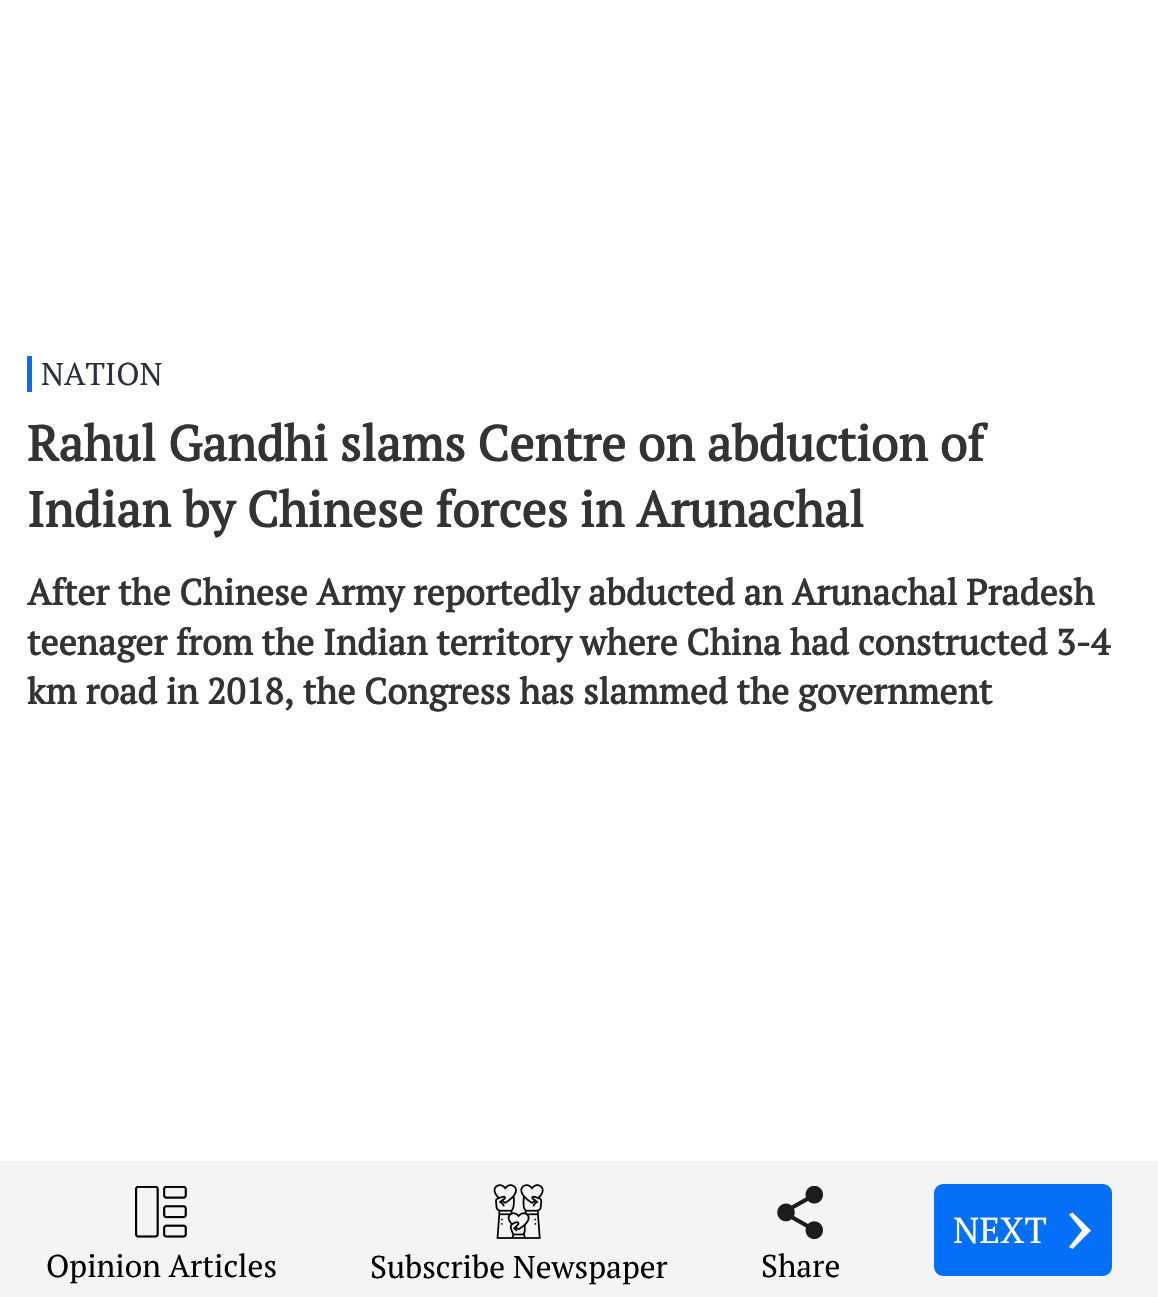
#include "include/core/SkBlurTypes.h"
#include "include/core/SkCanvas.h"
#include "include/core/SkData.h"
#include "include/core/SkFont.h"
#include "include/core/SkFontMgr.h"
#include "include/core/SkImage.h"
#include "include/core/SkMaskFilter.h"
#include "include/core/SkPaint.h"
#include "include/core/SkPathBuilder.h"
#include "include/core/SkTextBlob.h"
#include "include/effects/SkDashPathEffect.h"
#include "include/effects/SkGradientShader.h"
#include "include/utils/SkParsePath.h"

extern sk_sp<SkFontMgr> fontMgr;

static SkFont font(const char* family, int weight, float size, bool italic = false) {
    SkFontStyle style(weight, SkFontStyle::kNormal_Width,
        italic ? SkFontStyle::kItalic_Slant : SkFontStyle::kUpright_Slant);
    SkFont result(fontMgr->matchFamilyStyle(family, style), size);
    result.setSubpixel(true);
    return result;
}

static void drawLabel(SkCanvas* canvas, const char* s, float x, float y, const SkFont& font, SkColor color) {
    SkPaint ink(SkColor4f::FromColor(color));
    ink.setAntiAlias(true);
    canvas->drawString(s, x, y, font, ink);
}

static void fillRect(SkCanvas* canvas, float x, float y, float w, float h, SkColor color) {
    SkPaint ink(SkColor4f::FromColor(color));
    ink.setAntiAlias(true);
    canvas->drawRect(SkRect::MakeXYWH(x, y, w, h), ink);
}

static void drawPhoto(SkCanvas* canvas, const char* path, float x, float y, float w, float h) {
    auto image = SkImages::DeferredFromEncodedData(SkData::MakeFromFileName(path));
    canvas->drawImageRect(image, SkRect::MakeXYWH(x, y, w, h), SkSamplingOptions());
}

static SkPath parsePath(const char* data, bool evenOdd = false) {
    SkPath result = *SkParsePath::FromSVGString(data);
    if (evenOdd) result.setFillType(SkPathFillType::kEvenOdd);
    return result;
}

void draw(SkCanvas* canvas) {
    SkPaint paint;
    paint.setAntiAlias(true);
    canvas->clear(0xFFFFFFFF);
    fillRect(canvas, 27, 356, 5, 36, 0xFF056FF7);
    SkFont font1 = font("PT Serif", 400, 31.5f);
    drawLabel(canvas, "NATION", 41, 385, font1, 0xFF2A313B);
    SkFont font2 = font("PT Serif", 700, 49.5f);
    drawLabel(canvas, "Rahul Gandhi slams Centre on abduction of", 27, 461, font2, 0xFF333333);
    drawLabel(canvas, "Indian by Chinese forces in Arunachal", 27, 527, font2, 0xFF333333);
    SkFont font3 = font("PT Serif", 700, 36);
    drawLabel(canvas, "After the Chinese Army reportedly abducted an Arunachal Pradesh", 27, 605, font3, 0xFF333333);
    drawLabel(canvas, "teenager from the Indian territory where China had constructed 3-4", 27, 655, font3, 0xFF333333);
    drawLabel(canvas, "km road in 2018, the Congress has slammed the government", 27, 704, font3, 0xFF333333);
    fillRect(canvas, 0, 1161, 1158, 136, 0xFFF4F4F4);
    paint.setColor(0xFF056FF7);
    canvas->drawRoundRect(SkRect::MakeXYWH(935, 1185, 176, 90), 8, 8, paint);
    paint.setStroke(true);
    paint.setStrokeWidth(2);
    canvas->drawRoundRect(SkRect::MakeXYWH(935, 1185, 176, 90), 8, 8, paint);
    SkFont font4 = font("PT Serif", 400, 36);
    drawLabel(canvas, "NEXT", 953, 1243, font4, 0xFFFFFFFF);
    paint.setStroke(false);
    paint.setColor(0xFFFFFFFF);
    canvas->drawPath(parsePath("M1069 1247L1082 1230.5L1069 1214.5L1072.5 1212.5L1091 1230.5L1072.5 1249Z"), paint);
    drawPhoto(canvas, "assets/img1.png", 135, 1186, 52, 52);
    drawLabel(canvas, "Opinion Articles", 46, 1277, font1, 0xFF000000);
    drawPhoto(canvas, "assets/img2.png", 493, 1184, 51, 55);
    drawLabel(canvas, "Subscribe Newspaper", 370, 1278, font1, 0xFF000000);
    drawPhoto(canvas, "assets/img3.png", 777, 1186, 46, 54);
    drawLabel(canvas, "Share", 761, 1277, font1, 0xFF000000);
}
